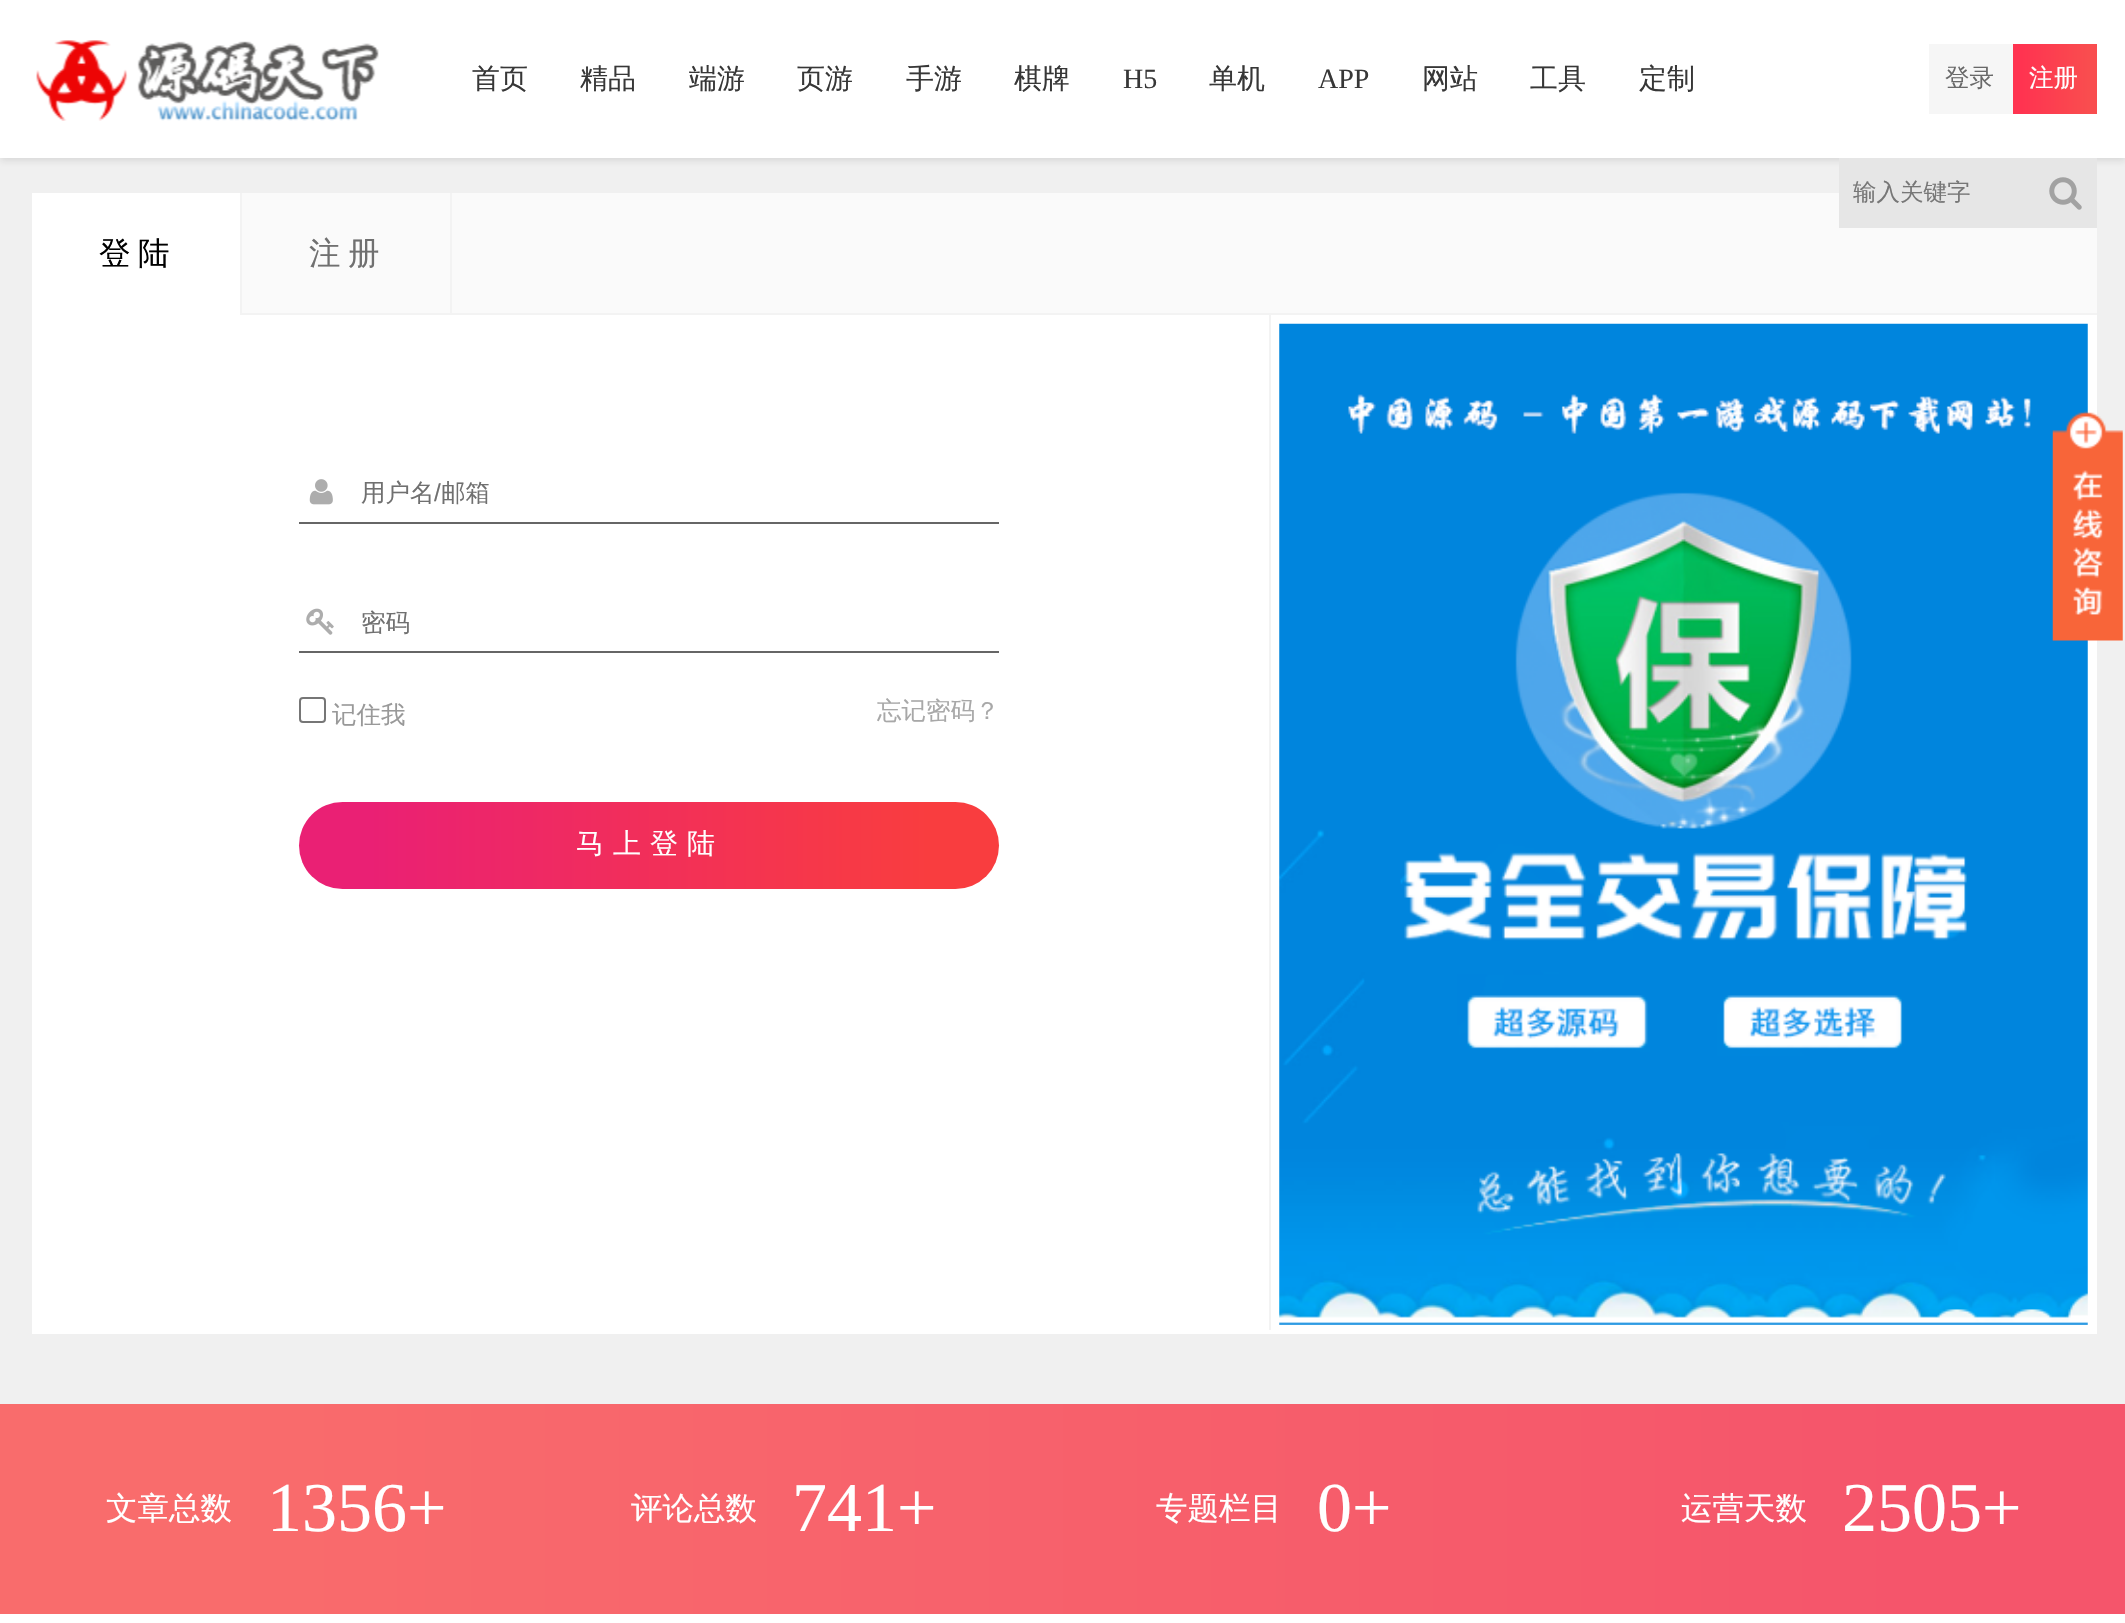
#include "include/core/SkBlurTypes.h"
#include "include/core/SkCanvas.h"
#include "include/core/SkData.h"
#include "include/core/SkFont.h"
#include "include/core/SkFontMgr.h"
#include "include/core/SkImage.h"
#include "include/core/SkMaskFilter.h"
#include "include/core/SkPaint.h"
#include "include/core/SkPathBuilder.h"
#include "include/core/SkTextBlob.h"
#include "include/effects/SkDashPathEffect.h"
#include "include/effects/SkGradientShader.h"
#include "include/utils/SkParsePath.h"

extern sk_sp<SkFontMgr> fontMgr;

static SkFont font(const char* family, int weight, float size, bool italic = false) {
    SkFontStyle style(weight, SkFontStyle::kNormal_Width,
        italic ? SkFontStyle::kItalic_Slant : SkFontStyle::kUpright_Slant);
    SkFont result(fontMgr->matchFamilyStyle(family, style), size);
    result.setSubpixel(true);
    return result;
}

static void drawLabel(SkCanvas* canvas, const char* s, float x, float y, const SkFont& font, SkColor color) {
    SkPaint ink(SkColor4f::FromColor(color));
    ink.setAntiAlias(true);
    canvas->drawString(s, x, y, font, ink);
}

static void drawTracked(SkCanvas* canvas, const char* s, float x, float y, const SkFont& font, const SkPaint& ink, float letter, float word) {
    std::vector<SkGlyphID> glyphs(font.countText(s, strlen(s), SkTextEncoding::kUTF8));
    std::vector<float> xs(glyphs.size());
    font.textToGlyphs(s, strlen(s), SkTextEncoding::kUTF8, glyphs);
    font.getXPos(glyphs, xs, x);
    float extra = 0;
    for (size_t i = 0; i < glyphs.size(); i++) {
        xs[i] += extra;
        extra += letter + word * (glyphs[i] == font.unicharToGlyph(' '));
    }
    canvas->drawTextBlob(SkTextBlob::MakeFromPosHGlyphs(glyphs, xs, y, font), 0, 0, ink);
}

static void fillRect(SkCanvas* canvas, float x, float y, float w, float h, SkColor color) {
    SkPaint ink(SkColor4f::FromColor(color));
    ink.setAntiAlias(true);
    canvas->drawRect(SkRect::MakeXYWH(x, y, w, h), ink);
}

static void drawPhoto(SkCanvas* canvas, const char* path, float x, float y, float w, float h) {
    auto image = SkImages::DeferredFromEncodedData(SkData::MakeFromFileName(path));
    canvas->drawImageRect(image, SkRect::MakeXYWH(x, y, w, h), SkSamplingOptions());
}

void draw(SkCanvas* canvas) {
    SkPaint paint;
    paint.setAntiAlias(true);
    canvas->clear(0xFFF0F0F0);
    paint.setColor(0x1A050505);
    paint.setMaskFilter(SkMaskFilter::MakeBlur(kNormal_SkBlurStyle, 3.5f));
    canvas->drawRect(SkRect::MakeXYWH(0, 4, 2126, 157), paint);
    paint.setMaskFilter(nullptr);
    fillRect(canvas, 0, 0, 2125, 158, 0xFFFFFFFF);
    drawPhoto(canvas, "assets/img1.png", 36, 40, 343, 81);
    SkFont font1 = font("WenQuanYi Zen Hei", 500, 28);
    drawLabel(canvas, "首页", 472, 88, font1, 0xFF373737);
    drawLabel(canvas, "精品", 580, 88, font1, 0xFF373737);
    drawLabel(canvas, "端游", 689, 88, font1, 0xFF373737);
    drawLabel(canvas, "页游", 797, 88, font1, 0xFF373737);
    drawLabel(canvas, "手游", 906, 88, font1, 0xFF373737);
    drawLabel(canvas, "棋牌", 1014, 88, font1, 0xFF373737);
    SkFont font2 = font("Liberation Serif", 400, 28);
    drawLabel(canvas, "H5", 1123, 88, font2, 0xFF373737);
    drawLabel(canvas, "单机", 1209, 88, font1, 0xFF373737);
    drawLabel(canvas, "APP", 1318, 88, font2, 0xFF373737);
    drawLabel(canvas, "网站", 1422, 88, font1, 0xFF373737);
    drawLabel(canvas, "工具", 1530, 88, font1, 0xFF373737);
    drawLabel(canvas, "定制", 1639, 88, font1, 0xFF373737);
    fillRect(canvas, 1929, 44, 84, 70, 0xFFF6F6F6);
    SkFont font3 = font("WenQuanYi Zen Hei", 500, 24.5f);
    drawLabel(canvas, "登录", 1945, 86, font3, 0xFF696969);
    {
        const SkColor colors[] = {0xFFFF3350, 0xFFF94D4F};
        const float stops[] = {0.1f, 0.9f};
        const SkPoint ends[] = {{2013, 79}, {2097, 79}};
        paint.setShader(SkGradientShader::MakeLinear(ends, colors, stops, 2, SkTileMode::kClamp));
        paint.setAlpha(255);
    }
    canvas->drawRect(SkRect::MakeXYWH(2013, 44, 84, 70), paint);
    drawLabel(canvas, "注册", 2029, 86, font3, 0xFFFFFFFF);
    fillRect(canvas, 452, 193, 1645, 120, 0xFFFAFAFA);
    fillRect(canvas, 1839, 158, 258, 70, 0xFAE6E6E6);
    SkFont font4 = font("WenQuanYi Zen Hei", 500, 23.5f);
    drawLabel(canvas, "输入关键字", 1853, 200, font4, 0xFF777777);
    drawPhoto(canvas, "assets/img2.png", 2049, 177, 33, 33);
    fillRect(canvas, 32, 315, 2065, 1019, 0xFFFFFFFF);
    fillRect(canvas, 452, 313, 1645, 2, 0xFFF3F3F3);
    fillRect(canvas, 32, 193, 208, 122, 0xFFFFFFFF);
    fillRect(canvas, 240, 193, 2, 122, 0xFFF3F3F3);
    SkFont font5 = font("WenQuanYi Zen Hei", 500, 31.5f);
    paint.setShader(nullptr);
    paint.setColor(0xFF000000);
    drawTracked(canvas, "登 陆", 99, 264, font5, paint, 0, -2);
    fillRect(canvas, 242, 193, 208, 120, 0xFFFAFAFA);
    fillRect(canvas, 450, 193, 2, 122, 0xFFF3F3F3);
    fillRect(canvas, 242, 313, 210, 2, 0xFFF3F3F3);
    paint.setColor(0xFF707070);
    drawTracked(canvas, "注 册", 309, 264, font5, paint, 0, -2);
    fillRect(canvas, 1269, 315, 2, 1015, 0xFFF3F3F3);
    drawPhoto(canvas, "assets/img3.png", 309, 479, 24, 26);
    fillRect(canvas, 299, 522, 700, 2, 0xFF666666);
    drawLabel(canvas, "用户名", 361, 501, font3, 0xFF707070);
    SkFont font6 = font("Liberation Sans", 400, 24.5f);
    drawLabel(canvas, "/", 434, 501, font6, 0xFF707070);
    drawLabel(canvas, "邮箱", 441, 501, font3, 0xFF707070);
    drawPhoto(canvas, "assets/img4.png", 306, 608, 28, 27);
    fillRect(canvas, 299, 651, 700, 2, 0xFF666666);
    drawLabel(canvas, "密码", 361, 631, font3, 0xFF707070);
    paint.setStroke(true);
    paint.setStrokeWidth(2);
    paint.setColor(0xFF767676);
    canvas->drawRoundRect(SkRect::MakeXYWH(300, 698, 25, 24), 3, 3, paint);
    drawLabel(canvas, "记住我", 332, 723, font3, 0xFF999999);
    drawLabel(canvas, "忘记密码？", 877, 719, font3, 0xFFA8A8A8);
    paint.setStroke(false);
    {
        const SkColor colors[] = {0xFFEA2074, 0xFFF93D3F};
        const float stops[] = {0.1f, 0.9f};
        const SkPoint ends[] = {{299, 845}, {999, 845}};
        paint.setShader(SkGradientShader::MakeLinear(ends, colors, stops, 2, SkTileMode::kClamp));
        paint.setAlpha(255);
    }
    canvas->drawRoundRect(SkRect::MakeXYWH(299, 802, 700, 87), 43.5f, 43.5f, paint);
    paint.setShader(nullptr);
    paint.setColor(0xFFFFFFFF);
    drawTracked(canvas, "马上登陆", 576, 853, font1, paint, 9, 0);
    drawPhoto(canvas, "assets/img5.png", 1279, 323, 809, 1002);
    drawPhoto(canvas, "assets/img6.png", 2052, 411, 71, 230);
    {
        const SkColor colors[] = {0xFFF96C6C, 0xFFF5556B};
        const float stops[] = {0.1f, 0.9f};
        const SkPoint ends[] = {{0, 1509}, {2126, 1509}};
        paint.setShader(SkGradientShader::MakeLinear(ends, colors, stops, 2, SkTileMode::kClamp));
        paint.setAlpha(255);
    }
    canvas->drawRect(SkRect::MakeXYWH(0, 1404, 2125, 210), paint);
    drawLabel(canvas, "文章总数", 106, 1519, font5, 0xFFFFFFFF);
    SkFont font7 = font("Liberation Serif", 400, 70);
    drawLabel(canvas, "1356+", 267, 1531, font7, 0xFFFFFFFF);
    drawLabel(canvas, "评论总数", 631, 1519, font5, 0xFFFFFFFF);
    drawLabel(canvas, "741+", 792, 1531, font7, 0xFFFFFFFF);
    drawLabel(canvas, "专题栏目", 1156, 1519, font5, 0xFFFFFFFF);
    drawLabel(canvas, "0+", 1317, 1531, font7, 0xFFFFFFFF);
    drawLabel(canvas, "运营天数", 1681, 1519, font5, 0xFFFFFFFF);
    drawLabel(canvas, "2505+", 1842, 1531, font7, 0xFFFFFFFF);
    fillRect(canvas, 0, 1614, 2125, 9, 0xFFFFFFFF);
}
